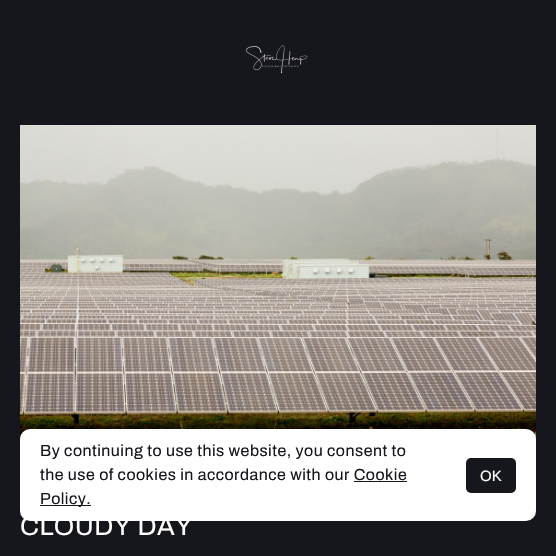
#include "include/core/SkBlurTypes.h"
#include "include/core/SkCanvas.h"
#include "include/core/SkData.h"
#include "include/core/SkFont.h"
#include "include/core/SkFontMgr.h"
#include "include/core/SkImage.h"
#include "include/core/SkMaskFilter.h"
#include "include/core/SkPaint.h"
#include "include/core/SkPathBuilder.h"
#include "include/core/SkTextBlob.h"
#include "include/effects/SkDashPathEffect.h"
#include "include/effects/SkGradientShader.h"
#include "include/utils/SkParsePath.h"

extern sk_sp<SkFontMgr> fontMgr;

static SkFont font(const char* family, int weight, float size, bool italic = false) {
    SkFontStyle style(weight, SkFontStyle::kNormal_Width,
        italic ? SkFontStyle::kItalic_Slant : SkFontStyle::kUpright_Slant);
    SkFont result(fontMgr->matchFamilyStyle(family, style), size);
    result.setSubpixel(true);
    return result;
}

static void drawLabel(SkCanvas* canvas, const char* s, float x, float y, const SkFont& font, SkColor color) {
    SkPaint ink(SkColor4f::FromColor(color));
    ink.setAntiAlias(true);
    canvas->drawString(s, x, y, font, ink);
}

static void drawTracked(SkCanvas* canvas, const char* s, float x, float y, const SkFont& font, const SkPaint& ink, float letter, float word) {
    std::vector<SkGlyphID> glyphs(font.countText(s, strlen(s), SkTextEncoding::kUTF8));
    std::vector<float> xs(glyphs.size());
    font.textToGlyphs(s, strlen(s), SkTextEncoding::kUTF8, glyphs);
    font.getXPos(glyphs, xs, x);
    float extra = 0;
    for (size_t i = 0; i < glyphs.size(); i++) {
        xs[i] += extra;
        extra += letter + word * (glyphs[i] == font.unicharToGlyph(' '));
    }
    canvas->drawTextBlob(SkTextBlob::MakeFromPosHGlyphs(glyphs, xs, y, font), 0, 0, ink);
}

static void fillRect(SkCanvas* canvas, float x, float y, float w, float h, SkColor color) {
    SkPaint ink(SkColor4f::FromColor(color));
    ink.setAntiAlias(true);
    canvas->drawRect(SkRect::MakeXYWH(x, y, w, h), ink);
}

static void fillRRect(SkCanvas* canvas, float x, float y, float w, float h, float radius, SkColor color) {
    SkPaint ink(SkColor4f::FromColor(color));
    ink.setAntiAlias(true);
    canvas->drawRoundRect(SkRect::MakeXYWH(x, y, w, h), radius, radius, ink);
}

static void drawPhoto(SkCanvas* canvas, const char* path, float x, float y, float w, float h) {
    auto image = SkImages::DeferredFromEncodedData(SkData::MakeFromFileName(path));
    canvas->drawImageRect(image, SkRect::MakeXYWH(x, y, w, h), SkSamplingOptions());
}

void draw(SkCanvas* canvas) {
    SkPaint paint;
    paint.setAntiAlias(true);
    canvas->clear(0xFF16161D);
    drawPhoto(canvas, "assets/img2.png", 20, 125, 516, 314);
    fillRRect(canvas, 20, 429, 516, 92, 10, 0xFFFFFFFF);
    SkFont font1 = font("Archivo", 400, 16);
    paint.setColor(0xFF16161D);
    drawTracked(canvas, "By continuing to use this website, you consent to", 40, 456, font1, paint, 0.5f, 0);
    drawTracked(canvas, "the use of cookies in accordance with our Cookie", 40, 480, font1, paint, 0.5f, 0);
    fillRect(canvas, 40, 505, 51, 1, 0xFF16161D);
    drawTracked(canvas, "Policy.", 40, 504, font1, paint, 0.5f, 0);
    fillRect(canvas, 354, 481, 53, 1, 0xFF16161D);
    fillRRect(canvas, 466, 458, 50, 35, 5, 0xFF16161D);
    SkFont font2 = font("Liberation Sans", 400, 15);
    drawLabel(canvas, "OK", 480, 481, font2, 0xFFFFFFFF);
    drawPhoto(canvas, "assets/img1.png", 245, 45, 63, 29);
    SkFont font3 = font("Archivo", 400, 26);
    paint.setColor(0xFFFFFFFF);
    drawTracked(canvas, "CLOUDY DAY", 20, 535, font3, paint, 0.5f, 0);
}
